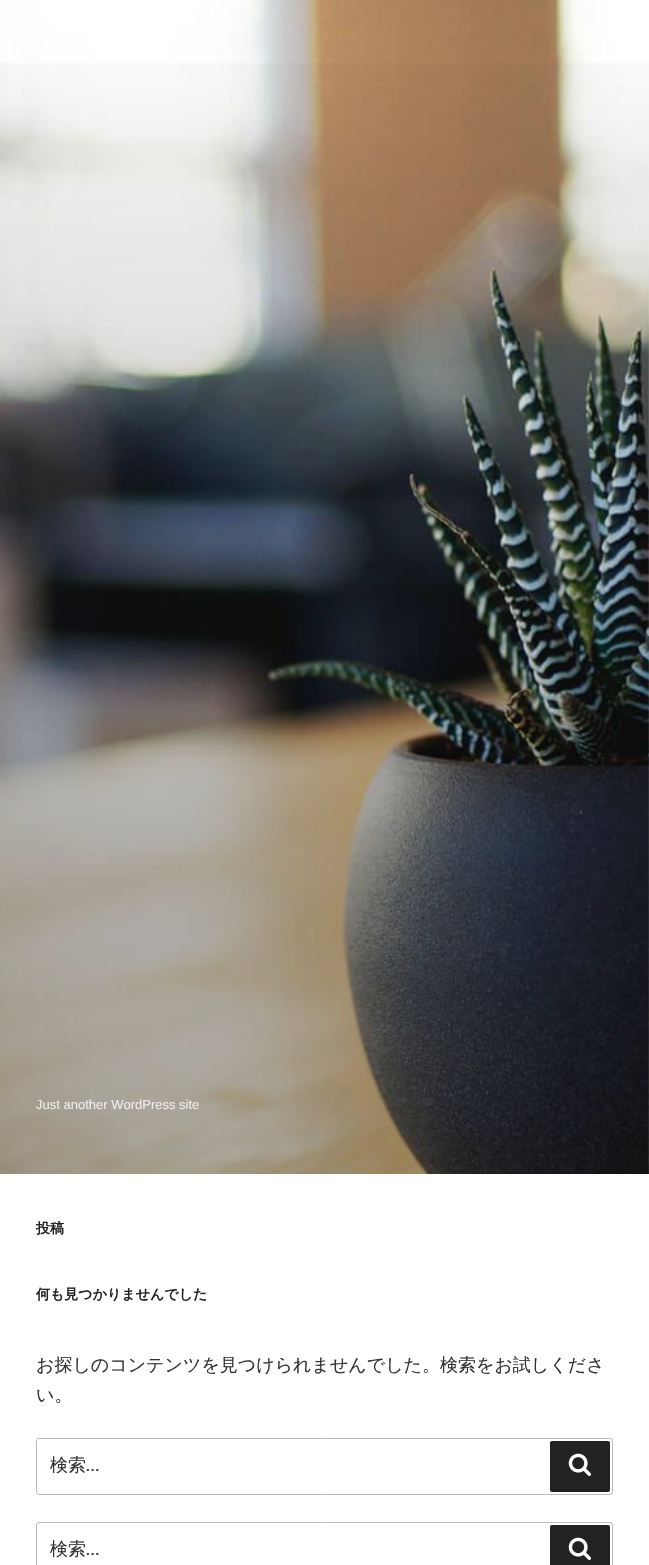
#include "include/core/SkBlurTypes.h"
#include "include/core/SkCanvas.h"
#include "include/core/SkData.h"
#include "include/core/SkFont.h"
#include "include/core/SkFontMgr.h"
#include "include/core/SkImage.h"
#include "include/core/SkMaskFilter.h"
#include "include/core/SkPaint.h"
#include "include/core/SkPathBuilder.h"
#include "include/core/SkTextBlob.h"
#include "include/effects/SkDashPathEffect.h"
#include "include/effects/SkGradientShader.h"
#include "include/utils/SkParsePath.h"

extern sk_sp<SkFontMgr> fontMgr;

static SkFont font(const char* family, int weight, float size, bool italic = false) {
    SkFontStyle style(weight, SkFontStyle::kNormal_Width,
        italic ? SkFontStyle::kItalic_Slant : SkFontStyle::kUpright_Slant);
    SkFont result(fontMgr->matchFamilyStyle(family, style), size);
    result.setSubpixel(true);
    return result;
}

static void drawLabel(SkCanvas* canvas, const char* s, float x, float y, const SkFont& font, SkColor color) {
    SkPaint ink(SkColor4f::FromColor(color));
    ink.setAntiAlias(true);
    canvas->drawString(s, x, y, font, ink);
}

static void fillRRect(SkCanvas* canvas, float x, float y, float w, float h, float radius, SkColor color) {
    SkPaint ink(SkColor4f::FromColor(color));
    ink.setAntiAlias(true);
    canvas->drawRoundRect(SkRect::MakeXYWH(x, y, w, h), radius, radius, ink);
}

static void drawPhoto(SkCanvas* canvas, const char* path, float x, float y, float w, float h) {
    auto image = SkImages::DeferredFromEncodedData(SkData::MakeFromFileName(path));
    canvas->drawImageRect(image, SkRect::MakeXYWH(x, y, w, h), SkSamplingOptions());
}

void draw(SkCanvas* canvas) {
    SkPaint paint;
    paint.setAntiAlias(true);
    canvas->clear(0xFFFFFFFF);
    drawPhoto(canvas, "assets/img1.png", 0, 0, 649, 1174);
    {
        const SkColor colors[] = {0x00000000, 0x4D000000, 0x4D000000};
        const float stops[] = {0, 0.75f, 1};
        const SkPoint ends[] = {{324, 0}, {325, 1174}};
        paint.setShader(SkGradientShader::MakeLinear(ends, colors, stops, 3, SkTileMode::kClamp));
        paint.setAlpha(255);
    }
    canvas->drawRect(SkRect::MakeXYWH(0, 63, 649, 1111), paint);
    SkFont font1 = font("Liberation Sans", 400, 13);
    drawLabel(canvas, "Just another WordPress site", 36, 1109, font1, 0xFFEDECEA);
    SkFont font2 = font("WenQuanYi Zen Hei", 700, 14);
    drawLabel(canvas, "投稿", 36, 1233, font2, 0xFF222222);
    drawLabel(canvas, "何も見つかりませんでした", 36, 1299, font2, 0xFF222222);
    SkFont font3 = font("WenQuanYi Zen Hei", 500, 18);
    drawLabel(canvas, "お探しのコンテンツを見つけられませんでした。検索をお試しくださ", 36, 1371, font3, 0xFF333333);
    drawLabel(canvas, "い。", 36, 1401, font3, 0xFF333333);
    paint.setStroke(true);
    paint.setStrokeWidth(1);
    paint.setShader(nullptr);
    paint.setColor(0xFFBBBBBB);
    canvas->drawRoundRect(SkRect::MakeXYWH(36.5f, 1438.5f, 576, 56), 2.5f, 2.5f, paint);
    drawLabel(canvas, "検索", 50, 1471, font3, 0xFF333333);
    SkFont font4 = font("Libre Franklin", 400, 18);
    drawLabel(canvas, "…", 86, 1471, font4, 0xFF333333);
    fillRRect(canvas, 550, 1441, 60, 51, 2, 0xFF222222);
    drawPhoto(canvas, "assets/img2.png", 568, 1453, 23, 23);
    canvas->drawRoundRect(SkRect::MakeXYWH(36.5f, 1522.5f, 576, 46), 2.5f, 2.5f, paint);
    drawLabel(canvas, "検索", 50, 1555, font3, 0xFF333333);
    drawLabel(canvas, "…", 86, 1555, font4, 0xFF333333);
    fillRRect(canvas, 550, 1525, 60, 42, 2, 0xFF222222);
    drawPhoto(canvas, "assets/img2.png", 568, 1537, 23, 23);
}
